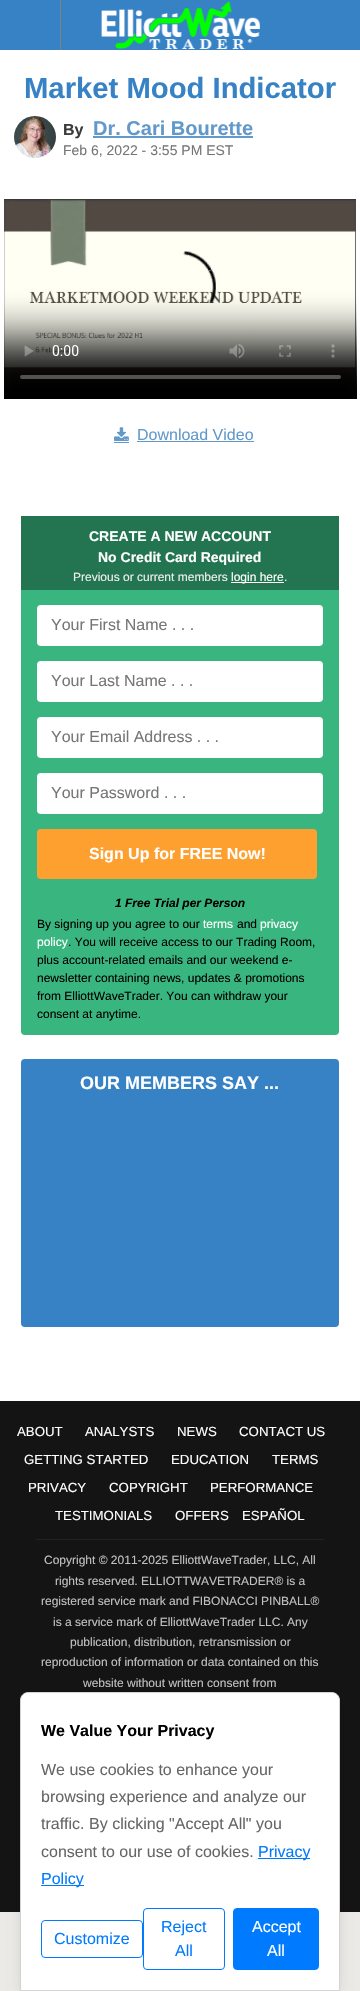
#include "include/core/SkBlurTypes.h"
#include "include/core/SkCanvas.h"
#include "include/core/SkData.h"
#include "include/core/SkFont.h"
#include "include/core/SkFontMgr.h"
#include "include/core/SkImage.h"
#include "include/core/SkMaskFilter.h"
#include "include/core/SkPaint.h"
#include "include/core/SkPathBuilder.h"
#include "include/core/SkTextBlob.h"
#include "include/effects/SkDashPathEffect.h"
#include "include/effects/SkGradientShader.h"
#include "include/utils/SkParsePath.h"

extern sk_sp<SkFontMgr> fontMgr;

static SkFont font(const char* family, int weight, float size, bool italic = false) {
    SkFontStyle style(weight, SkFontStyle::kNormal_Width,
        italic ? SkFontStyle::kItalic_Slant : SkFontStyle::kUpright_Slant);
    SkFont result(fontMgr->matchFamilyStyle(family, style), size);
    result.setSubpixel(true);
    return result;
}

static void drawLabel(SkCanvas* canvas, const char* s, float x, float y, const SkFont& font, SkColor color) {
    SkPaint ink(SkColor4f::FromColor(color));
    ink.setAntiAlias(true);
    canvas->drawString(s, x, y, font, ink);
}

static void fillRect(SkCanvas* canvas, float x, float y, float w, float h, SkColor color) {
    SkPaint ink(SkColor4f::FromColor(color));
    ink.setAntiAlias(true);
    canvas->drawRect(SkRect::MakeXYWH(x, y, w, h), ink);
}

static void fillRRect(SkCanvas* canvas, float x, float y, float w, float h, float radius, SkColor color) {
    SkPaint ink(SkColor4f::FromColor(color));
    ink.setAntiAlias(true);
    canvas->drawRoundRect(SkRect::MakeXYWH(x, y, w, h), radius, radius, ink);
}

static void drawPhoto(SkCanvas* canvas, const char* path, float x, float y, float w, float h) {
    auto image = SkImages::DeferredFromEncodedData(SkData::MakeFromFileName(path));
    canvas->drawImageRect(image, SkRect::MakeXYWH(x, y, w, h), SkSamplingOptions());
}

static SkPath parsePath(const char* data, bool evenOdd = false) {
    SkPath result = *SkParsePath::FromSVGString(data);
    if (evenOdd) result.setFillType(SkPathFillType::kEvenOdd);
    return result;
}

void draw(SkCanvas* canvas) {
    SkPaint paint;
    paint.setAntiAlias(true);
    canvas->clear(0xFFECEAE7);
    fillRect(canvas, 0, 0, 360, 50, 0xFF3782C5);
    fillRect(canvas, 60, 0, 1, 50, 0xFF808080);
    drawPhoto(canvas, "assets/img1.png", 101, 1, 159, 48);
    fillRect(canvas, 0, 50, 360, 1351, 0xFFFFFFFF);
    SkFont font1 = font("Liberation Sans", 700, 29.25f);
    drawLabel(canvas, "Market Mood Indicator", 24, 98, font1, 0xFF3782C5);
    drawPhoto(canvas, "assets/img2.png", 14, 116, 42, 42);
    SkFont font2 = font("Liberation Sans", 700, 16);
    drawLabel(canvas, "By", 63, 135, font2, 0xFF3B3B3B);
    SkFont font3 = font("Liberation Sans", 700, 20);
    drawLabel(canvas, "Dr. Cari Bourette", 93, 135, font3, 0xFF6299CA);
    fillRect(canvas, 93, 136, 160, 2, 0xFF6299CA);
    SkFont font4 = font("Liberation Sans", 400, 14);
    drawLabel(canvas, "Feb 6, 2022 - 3:55 PM EST", 63, 155, font4, 0xFF767676);
    drawPhoto(canvas, "assets/img3.png", 4, 199, 353, 200);
    fillRect(canvas, 114, 442, 15, 1, 0xFF6299CA);
    drawPhoto(canvas, "assets/img4.png", 114, 427, 15, 14);
    SkFont font5 = font("Liberation Sans", 400, 16);
    drawLabel(canvas, "Download Video", 137, 440, font5, 0xFF6299CA);
    fillRect(canvas, 137, 441, 117, 1, 0xFF6299CA);
    fillRRect(canvas, 21, 516, 318, 519, 4, 0xFF39B57F);
    fillRect(canvas, 21, 516, 318, 74, 0xFF237451);
    SkFont font6 = font("Liberation Sans", 700, 14);
    drawLabel(canvas, "CREATE A NEW ACCOUNT", 89, 541, font6, 0xFFFFFFFF);
    drawLabel(canvas, "No Credit Card Required", 98, 562, font6, 0xFFFFFFFF);
    SkFont font7 = font("Liberation Sans", 400, 12);
    drawLabel(canvas, "Previous or current members", 73, 581, font7, 0xFFEEEEEE);
    fillRect(canvas, 231, 582, 53, 1, 0xFFFFFFFF);
    drawLabel(canvas, "login here", 231, 581, font7, 0xFFFFFFFF);
    drawLabel(canvas, ".", 284, 581, font7, 0xFFEEEEEE);
    fillRRect(canvas, 37, 605, 286, 41, 4, 0xFFFFFFFF);
    drawLabel(canvas, "Your First Name . . .", 51, 630, font5, 0xFF767676);
    fillRRect(canvas, 37, 661, 286, 41, 4, 0xFFFFFFFF);
    drawLabel(canvas, "Your Last Name . . .", 51, 686, font5, 0xFF767676);
    fillRRect(canvas, 37, 717, 286, 41, 4, 0xFFFFFFFF);
    drawLabel(canvas, "Your Email Address . . .", 51, 742, font5, 0xFF767676);
    fillRRect(canvas, 37, 773, 286, 41, 4, 0xFFFFFFFF);
    drawLabel(canvas, "Your Password . . .", 51, 798, font5, 0xFF767676);
    fillRRect(canvas, 37, 829, 280, 50, 4, 0xFFFEA030);
    drawLabel(canvas, "Sign Up for FREE Now!", 89, 859, font2, 0xFFFFFFFF);
    SkFont font8 = font("Liberation Sans", 700, 12, true);
    drawLabel(canvas, "1 Free Trial per Person", 115, 907, font8, 0xFF000000);
    drawLabel(canvas, "By signing up you agree to our", 37, 928, font7, 0xFF000000);
    drawLabel(canvas, "terms", 203, 928, font7, 0xFFFFFFFF);
    drawLabel(canvas, "and", 237, 928, font7, 0xFF000000);
    drawLabel(canvas, "privacy", 260, 928, font7, 0xFFFFFFFF);
    drawLabel(canvas, "policy", 37, 946, font7, 0xFFFFFFFF);
    drawLabel(canvas, ". You will receive access to our Trading Room,", 68, 946, font7, 0xFF000000);
    drawLabel(canvas, "plus account-related emails and our weekend e-", 37, 964, font7, 0xFF000000);
    drawLabel(canvas, "newsletter containing news, updates & promotions", 37, 982, font7, 0xFF000000);
    drawLabel(canvas, "from ElliottWaveTrader. You can withdraw your", 37, 1000, font7, 0xFF000000);
    drawLabel(canvas, "consent at anytime.", 37, 1018, font7, 0xFF000000);
    fillRRect(canvas, 21, 1059, 318, 268, 4, 0xFF3782C5);
    SkFont font9 = font("Liberation Sans", 700, 18);
    drawLabel(canvas, "OUR MEMBERS SAY ...", 80, 1089, font9, 0xFFFFFFFF);
    fillRect(canvas, 0, 1401, 360, 511, 0xFF141414);
    SkFont font10 = font("Liberation Sans", 400, 13.25f);
    drawLabel(canvas, "ABOUT", 17, 1436, font10, 0xFFFFFFFF);
    drawLabel(canvas, "ANALYSTS", 85, 1436, font10, 0xFFFFFFFF);
    drawLabel(canvas, "NEWS", 177, 1436, font10, 0xFFFFFFFF);
    drawLabel(canvas, "CONTACT US", 239, 1436, font10, 0xFFFFFFFF);
    drawLabel(canvas, "GETTING STARTED", 24, 1464, font10, 0xFFFFFFFF);
    drawLabel(canvas, "EDUCATION", 171, 1464, font10, 0xFFFFFFFF);
    drawLabel(canvas, "TERMS", 272, 1464, font10, 0xFFFFFFFF);
    drawLabel(canvas, "PRIVACY", 28, 1492, font10, 0xFFFFFFFF);
    drawLabel(canvas, "COPYRIGHT", 109, 1492, font10, 0xFFFFFFFF);
    drawLabel(canvas, "PERFORMANCE", 210, 1492, font10, 0xFFFFFFFF);
    drawLabel(canvas, "TESTIMONIALS", 55, 1520, font10, 0xFFFFFFFF);
    drawLabel(canvas, "OFFERS", 175, 1520, font10, 0xFFFFFFFF);
    drawLabel(canvas, "ESPAÑOL", 242, 1520, font10, 0xFFFFFFFF);
    fillRect(canvas, 36, 1539, 288, 1, 0xFF222222);
    drawLabel(canvas, "Copyright © 2011-2025 ElliottWaveTrader, LLC, All", 44, 1564, font7, 0xFFC1C1C1);
    drawLabel(canvas, "rights reserved. ELLIOTTWAVETRADER® is a", 55, 1585, font7, 0xFFC1C1C1);
    drawLabel(canvas, "registered service mark and FIBONACCI PINBALL®", 41, 1605, font7, 0xFFC1C1C1);
    drawLabel(canvas, "is a service mark of ElliottWaveTrader LLC. Any", 53, 1626, font7, 0xFFC1C1C1);
    drawLabel(canvas, "publication, distribution, retransmission or", 70, 1646, font7, 0xFFC1C1C1);
    drawLabel(canvas, "reproduction of information or data contained on this", 41, 1666, font7, 0xFFC1C1C1);
    drawLabel(canvas, "website without written consent from", 83, 1687, font7, 0xFFC1C1C1);
    paint.setColor(0x1A000000);
    paint.setMaskFilter(SkMaskFilter::MakeBlur(kNormal_SkBlurStyle, 6));
    canvas->drawRoundRect(SkRect::MakeXYWH(20, 1696, 320, 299), 8, 8, paint);
    paint.setMaskFilter(nullptr);
    paint.setColor(0xFFFFFFFF);
    canvas->drawPath(parsePath("M28 1692.5H332C336 1692.5 339.5 1696 339.5 1700V1990.5H20.5V1700C20.5 1696 24 1692.5 28 1692.5Z"), paint);
    paint.setStroke(true);
    paint.setStrokeWidth(1);
    paint.setColor(0xFFD3D3D3);
    canvas->drawPath(parsePath("M28 1692.5H332C336 1692.5 339.5 1696 339.5 1700V1990.5H20.5V1700C20.5 1696 24 1692.5 28 1692.5Z"), paint);
    drawLabel(canvas, "We Value Your Privacy", 41, 1736, font2, 0xFF000000);
    drawLabel(canvas, "We use cookies to enhance your", 41, 1775, font5, 0xFF666666);
    drawLabel(canvas, "browsing experience and analyze our", 41, 1802, font5, 0xFF666666);
    drawLabel(canvas, "traffic. By clicking \"Accept All\" you", 41, 1829, font5, 0xFF666666);
    drawLabel(canvas, "consent to our use of cookies.", 41, 1857, font5, 0xFF666666);
    fillRect(canvas, 258, 1858, 52, 1, 0xFF007BFF);
    drawLabel(canvas, "Privacy", 258, 1857, font5, 0xFF007BFF);
    fillRect(canvas, 41, 1885, 43, 1, 0xFF007BFF);
    drawLabel(canvas, "Policy", 41, 1884, font5, 0xFF007BFF);
    paint.setColor(0xFF007BFF);
    canvas->drawRoundRect(SkRect::MakeXYWH(41.5f, 1920.5f, 101, 37), 3.5f, 3.5f, paint);
    drawLabel(canvas, "Customize", 54, 1944, font5, 0xFF007BFF);
    canvas->drawRoundRect(SkRect::MakeXYWH(143.5f, 1908.5f, 81, 61), 3.5f, 3.5f, paint);
    drawLabel(canvas, "Reject", 161, 1932, font5, 0xFF007BFF);
    drawLabel(canvas, "All", 175, 1956, font5, 0xFF007BFF);
    paint.setStroke(false);
    canvas->drawRoundRect(SkRect::MakeXYWH(233.5f, 1908.5f, 85, 61), 3.5f, 3.5f, paint);
    paint.setStroke(true);
    canvas->drawRoundRect(SkRect::MakeXYWH(233.5f, 1908.5f, 85, 61), 3.5f, 3.5f, paint);
    drawLabel(canvas, "Accept", 252, 1932, font5, 0xFFFFFFFF);
    drawLabel(canvas, "All", 267, 1956, font5, 0xFFFFFFFF);
}
